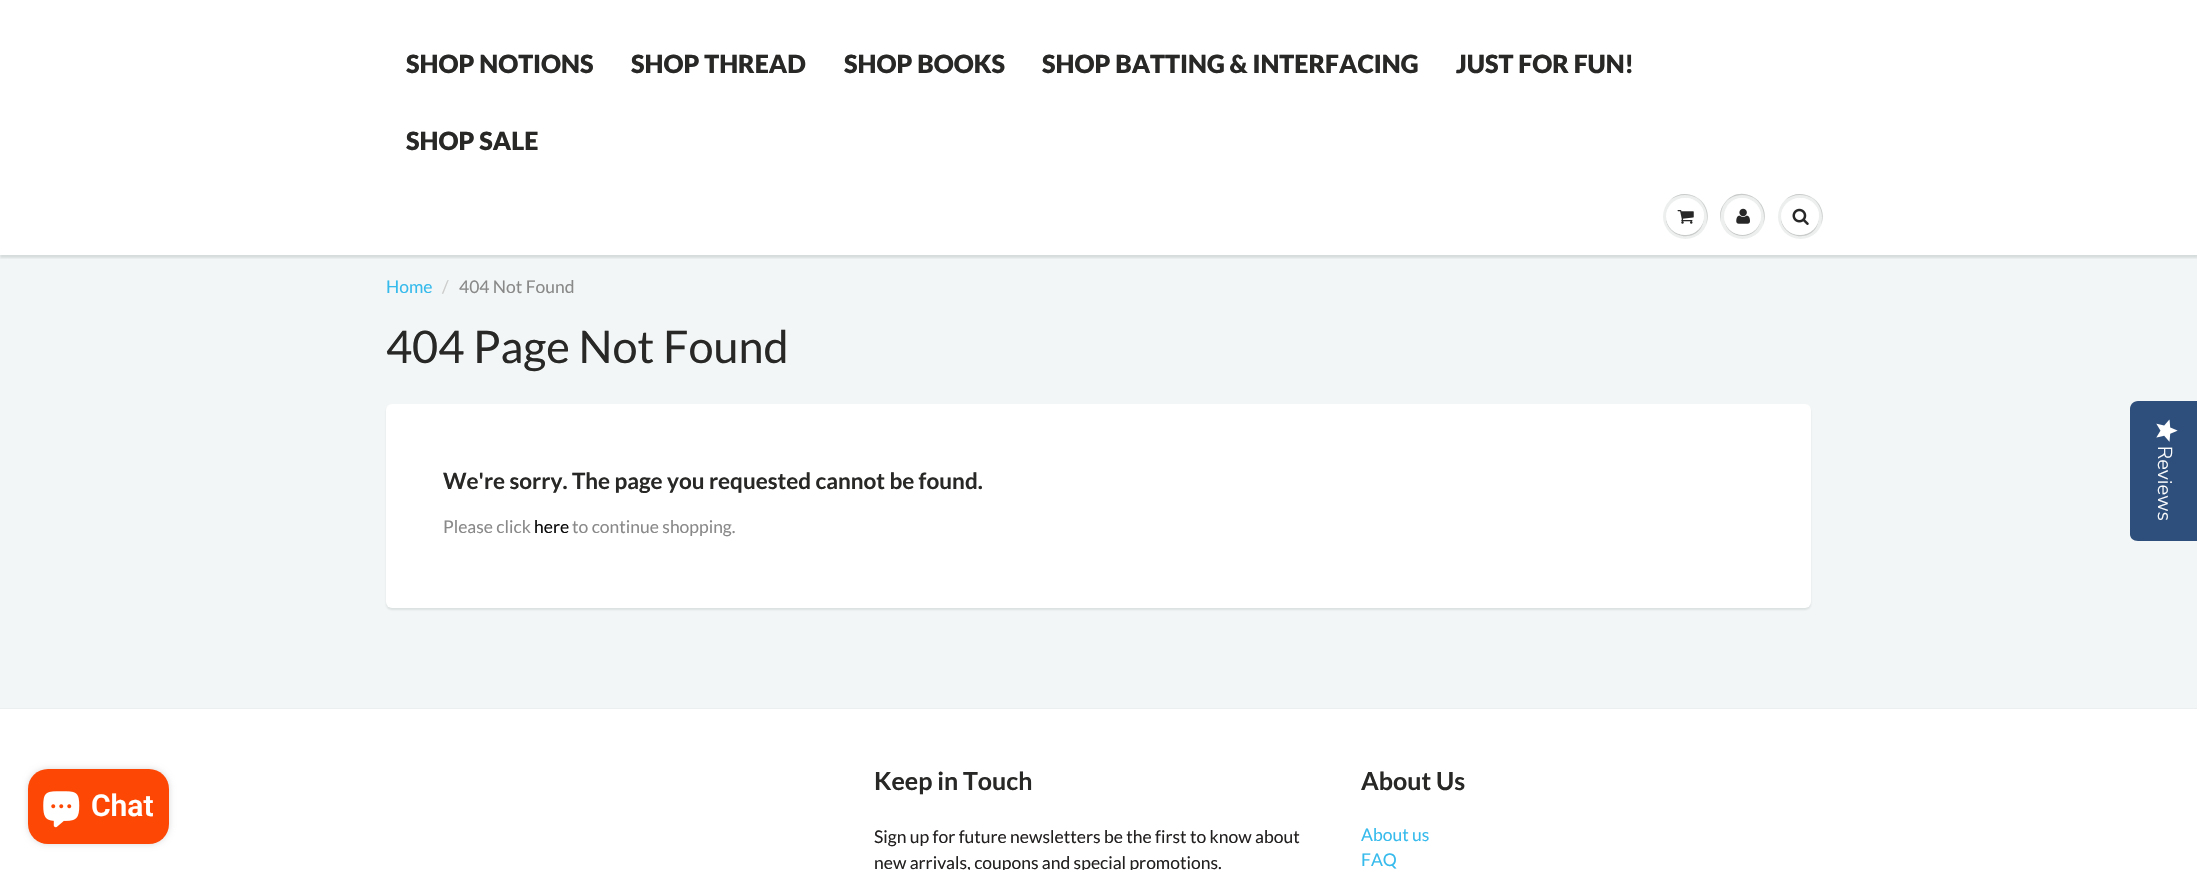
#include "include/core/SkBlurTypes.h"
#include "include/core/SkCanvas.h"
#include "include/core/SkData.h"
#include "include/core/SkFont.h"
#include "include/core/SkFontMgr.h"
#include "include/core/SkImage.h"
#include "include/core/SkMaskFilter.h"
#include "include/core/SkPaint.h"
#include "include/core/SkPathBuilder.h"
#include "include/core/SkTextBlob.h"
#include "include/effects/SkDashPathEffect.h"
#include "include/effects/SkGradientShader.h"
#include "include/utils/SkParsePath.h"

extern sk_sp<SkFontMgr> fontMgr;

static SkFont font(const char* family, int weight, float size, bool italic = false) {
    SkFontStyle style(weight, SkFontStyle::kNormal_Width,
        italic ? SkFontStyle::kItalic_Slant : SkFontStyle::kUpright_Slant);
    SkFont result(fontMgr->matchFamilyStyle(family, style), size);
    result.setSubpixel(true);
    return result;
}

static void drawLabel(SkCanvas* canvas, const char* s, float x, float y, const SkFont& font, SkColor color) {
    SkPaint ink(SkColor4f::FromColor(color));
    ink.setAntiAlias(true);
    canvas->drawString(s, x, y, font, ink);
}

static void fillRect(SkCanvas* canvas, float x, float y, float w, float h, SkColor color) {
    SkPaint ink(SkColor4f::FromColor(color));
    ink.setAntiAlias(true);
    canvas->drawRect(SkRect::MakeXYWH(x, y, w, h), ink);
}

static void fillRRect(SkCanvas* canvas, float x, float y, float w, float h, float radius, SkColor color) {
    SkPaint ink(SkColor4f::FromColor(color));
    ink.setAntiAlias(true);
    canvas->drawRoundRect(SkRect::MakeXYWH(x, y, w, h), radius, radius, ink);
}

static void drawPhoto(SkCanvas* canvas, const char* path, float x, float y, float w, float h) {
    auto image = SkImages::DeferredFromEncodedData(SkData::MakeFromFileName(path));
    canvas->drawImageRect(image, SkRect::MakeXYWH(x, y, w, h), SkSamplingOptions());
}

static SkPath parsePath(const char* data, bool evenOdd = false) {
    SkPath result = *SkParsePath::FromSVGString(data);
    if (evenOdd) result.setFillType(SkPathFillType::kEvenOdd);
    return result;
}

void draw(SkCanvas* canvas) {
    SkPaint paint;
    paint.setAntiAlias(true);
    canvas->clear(0xFFFFFFFF);
    fillRect(canvas, 0, 255, 2197, 453, 0xFFF3F6F6);
    canvas->save();
    canvas->clipRect(SkRect::MakeXYWH(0, 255, 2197, 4));
    paint.setColor(0x1F0B191C);
    paint.setMaskFilter(SkMaskFilter::MakeBlur(kNormal_SkBlurStyle, 1));
    canvas->drawRect(SkRect::MakeXYWH(0, -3, 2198, 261), paint);
    paint.setMaskFilter(nullptr);
    canvas->restore();
    SkFont font1 = font("Lato", 900, 25);
    drawLabel(canvas, "SHOP NOTIONS", 406, 73, font1, 0xFF282827);
    drawLabel(canvas, "SHOP THREAD", 631, 73, font1, 0xFF282827);
    drawLabel(canvas, "SHOP BOOKS", 844, 73, font1, 0xFF282827);
    drawLabel(canvas, "SHOP BATTING & INTERFACING", 1042, 73, font1, 0xFF282827);
    drawLabel(canvas, "JUST FOR FUN!", 1456, 73, font1, 0xFF282827);
    drawLabel(canvas, "SHOP SALE", 406, 150, font1, 0xFF282827);
    paint.setColor(0xFFEDEFEF);
    canvas->drawCircle(1685.5f, 216.5f, 22.5f, paint);
    paint.setColor(0xFFC9CBCB);
    canvas->drawPath(parsePath("M1685 195C1703 195 1710 212 1706 225C1715 203 1687 184 1670 200C1674 197 1679 195 1685 195Z"), paint);
    canvas->drawPath(parsePath("M1666.5 213.5C1662 233.5 1689.5 245 1701 228C1703.5 223.5 1704.5 218 1703.5 213.5C1704.5 218 1703 223 1700.5 226.5C1689.5 243.5 1663.5 232.5 1666.5 213.5Z"), paint);
    fillRRect(canvas, 1666, 198, 38, 37, 18.5f, 0xFFFFFFFF);
    paint.setColor(0xFFFFFFFF);
    canvas->drawPath(parsePath("M1685 199C1699 199 1705 211 1703 221C1705 216 1704 210 1701 206C1689 189 1662 201 1667 221C1665 211 1671 199 1685 199Z"), paint);
    drawPhoto(canvas, "assets/img1.png", 1677, 210, 17, 14);
    paint.setColor(0xFFEDEFEF);
    canvas->drawCircle(1742.5f, 216.5f, 22.5f, paint);
    paint.setColor(0xFFC9CBCB);
    canvas->drawPath(parsePath("M1742 195C1760 195 1767 212 1763 225C1773 201 1739 181 1724 204C1720 209 1719 216 1721 222C1719 209 1726 195 1742 195Z"), paint);
    canvas->drawPath(parsePath("M1724.5 220.5C1727.5 241 1757.5 241 1760.5 220.5C1756 239.5 1729 239.5 1724.5 220.5Z"), paint);
    paint.setColor(0xFFFFFFFF);
    canvas->drawCircle(1742.5f, 216.5f, 18.5f, paint);
    canvas->drawPath(parsePath("M1742 199C1756 199 1762 210.5 1760.5 221C1765.5 201.5 1739 189 1727 206C1725 209.5 1724 213 1724 217C1724 208 1730 199 1742 199Z"), paint);
    drawPhoto(canvas, "assets/img2.png", 1736, 208, 14, 16);
    paint.setColor(0xFFEDEFEF);
    canvas->drawCircle(1800.5f, 216.5f, 22.5f, paint);
    paint.setColor(0xFFC9CBCB);
    canvas->drawPath(parsePath("M1800 195C1818 195 1825 212 1821 225C1830 203 1802 184 1785 200C1789 197 1794 195 1800 195Z"), paint);
    canvas->drawPath(parsePath("M1781.5 213.5C1777 233.5 1804.5 245 1816 228C1818.5 223.5 1819.5 218 1818.5 213.5C1821.5 232.5 1795.5 243.5 1784.5 226.5C1782 223 1780.5 218 1781.5 213.5Z"), paint);
    fillRRect(canvas, 1781, 198, 38, 37, 18.5f, 0xFFFFFFFF);
    paint.setColor(0xFFFFFFFF);
    canvas->drawPath(parsePath("M1800 199C1814 199 1820 211 1818 221C1820 216 1819 210 1816 206C1804 189 1777 201 1782 221C1780 211 1786 199 1800 199Z"), paint);
    drawPhoto(canvas, "assets/img3.png", 1792, 208, 17, 17);
    SkFont font2 = font("Lato", 400, 17.5f);
    drawLabel(canvas, "Home", 386, 293, font2, 0xFF37BBEC);
    drawLabel(canvas, "/", 442, 293, font2, 0xFFCCCCCC);
    drawLabel(canvas, "404 Not Found", 459, 293, font2, 0xFF898989);
    SkFont font3 = font("Lato", 400, 45);
    drawLabel(canvas, "404 Page Not Found", 386, 363, font3, 0xFF282827);
    paint.setColor(0x1A0B191C);
    paint.setMaskFilter(SkMaskFilter::MakeBlur(kNormal_SkBlurStyle, 1));
    canvas->drawRoundRect(SkRect::MakeXYWH(386, 406, 1425, 204), 6, 6, paint);
    paint.setMaskFilter(nullptr);
    fillRRect(canvas, 386, 404, 1425, 204, 6, 0xFFFFFFFF);
    SkFont font4 = font("Lato", 700, 22.5f);
    drawLabel(canvas, "We're sorry. The page you requested cannot be found.", 443, 489, font4, 0xFF282827);
    drawLabel(canvas, "Please click", 443, 533, font2, 0xFF898989);
    drawLabel(canvas, "here", 534, 533, font2, 0xFF090909);
    drawLabel(canvas, "to continue shopping.", 572, 533, font2, 0xFF898989);
    fillRect(canvas, 0, 708, 2197, 1, 0xFFECEFEF);
    SkFont font5 = font("Lato", 700, 25);
    drawLabel(canvas, "Keep in Touch", 874, 790, font5, 0xFF282827);
    drawLabel(canvas, "Sign up for future newsletters be the first to know about", 874, 843, font2, 0xFF232020);
    drawLabel(canvas, "new arrivals, coupons and special promotions.", 874, 869, font2, 0xFF232020);
    drawLabel(canvas, "About Us", 1361, 790, font5, 0xFF282827);
    drawLabel(canvas, "About us", 1361, 841, font2, 0xFF37BBEC);
    drawLabel(canvas, "FAQ", 1361, 866, font2, 0xFF37BBEC);
    paint.setColor(0xFF2E4F7C);
    canvas->drawPath(parsePath("M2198 401V541H2138C2133 541 2130 538 2130 534V409C2130 405 2133 401 2138 401Z"), paint);
    drawPhoto(canvas, "assets/img4.png", 2156, 419, 22, 23);
    SkFont font6 = font("Nunito Sans", 300, 20);
    canvas->save();
    canvas->rotate(90, 2158, 446);
    drawLabel(canvas, "Reviews", 2158, 446, font6, 0xFFFFFFFF);
    canvas->restore();
    paint.setColor(0x26000000);
    paint.setMaskFilter(SkMaskFilter::MakeBlur(kNormal_SkBlurStyle, 3));
    canvas->drawRoundRect(SkRect::MakeXYWH(28, 769, 141, 75), 20, 20, paint);
    paint.setMaskFilter(nullptr);
    fillRRect(canvas, 28, 769, 141, 75, 20, 0xFFFD4805);
    drawPhoto(canvas, "assets/img5.png", 43, 791, 37, 37);
    SkFont font7 = font("Roboto", 600, 30);
    drawLabel(canvas, "Chat", 91, 816, font7, 0xFFFFFFFF);
}
